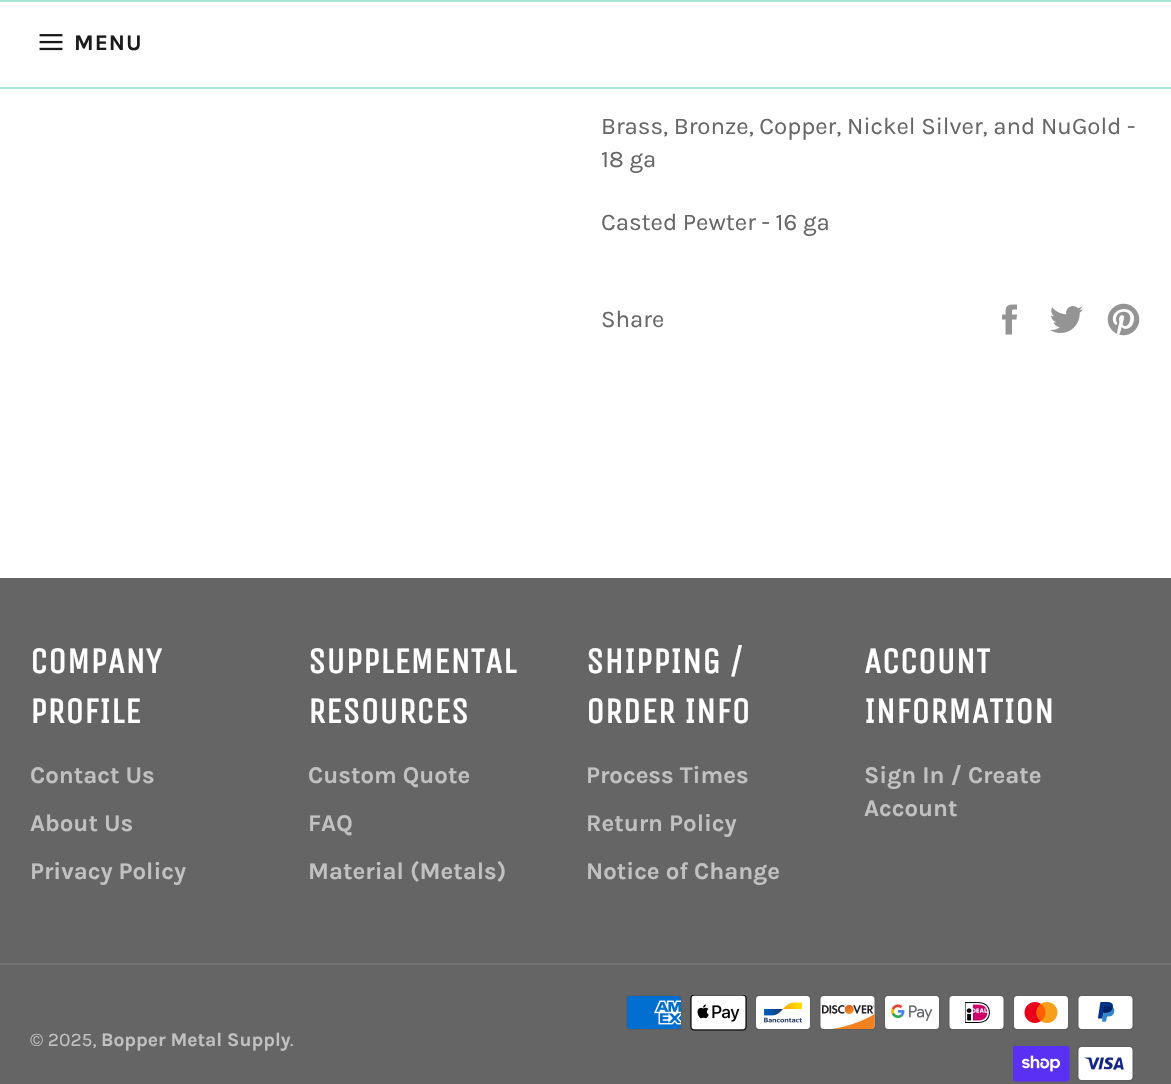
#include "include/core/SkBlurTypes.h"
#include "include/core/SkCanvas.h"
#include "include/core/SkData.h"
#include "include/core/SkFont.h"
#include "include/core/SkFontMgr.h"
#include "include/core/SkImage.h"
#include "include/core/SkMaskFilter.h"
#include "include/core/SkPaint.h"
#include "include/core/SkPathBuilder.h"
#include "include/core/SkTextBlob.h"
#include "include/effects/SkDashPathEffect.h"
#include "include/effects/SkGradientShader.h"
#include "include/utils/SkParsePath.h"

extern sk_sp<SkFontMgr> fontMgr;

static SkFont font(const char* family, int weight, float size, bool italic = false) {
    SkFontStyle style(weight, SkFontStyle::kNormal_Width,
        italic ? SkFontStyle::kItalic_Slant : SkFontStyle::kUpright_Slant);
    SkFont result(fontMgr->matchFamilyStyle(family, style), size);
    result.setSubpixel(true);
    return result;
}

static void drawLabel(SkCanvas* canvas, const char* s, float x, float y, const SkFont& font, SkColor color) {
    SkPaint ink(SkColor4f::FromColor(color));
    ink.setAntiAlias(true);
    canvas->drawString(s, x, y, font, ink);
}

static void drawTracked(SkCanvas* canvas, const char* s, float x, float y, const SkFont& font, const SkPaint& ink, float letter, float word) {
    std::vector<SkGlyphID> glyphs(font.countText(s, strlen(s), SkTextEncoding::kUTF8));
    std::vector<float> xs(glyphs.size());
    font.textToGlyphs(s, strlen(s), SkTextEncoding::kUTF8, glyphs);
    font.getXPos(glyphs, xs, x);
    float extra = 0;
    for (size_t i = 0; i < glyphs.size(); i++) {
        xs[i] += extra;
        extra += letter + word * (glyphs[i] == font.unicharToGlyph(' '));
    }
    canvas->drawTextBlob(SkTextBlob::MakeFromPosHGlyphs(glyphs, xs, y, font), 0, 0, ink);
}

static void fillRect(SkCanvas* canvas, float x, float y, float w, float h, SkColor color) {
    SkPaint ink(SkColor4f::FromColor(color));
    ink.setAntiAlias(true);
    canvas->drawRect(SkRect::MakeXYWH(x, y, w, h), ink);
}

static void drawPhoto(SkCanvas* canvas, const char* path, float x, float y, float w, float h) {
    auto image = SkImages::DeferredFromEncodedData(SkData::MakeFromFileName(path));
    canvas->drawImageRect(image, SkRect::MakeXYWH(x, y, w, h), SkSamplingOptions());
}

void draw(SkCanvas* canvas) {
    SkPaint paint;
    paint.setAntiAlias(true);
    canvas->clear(0xFFFFFFFF);
    fillRect(canvas, 0, 87, 1171, 2, 0xFFA6E4D7);
    fillRect(canvas, 0, 0, 1171, 2, 0xFFA6E4D7);
    drawPhoto(canvas, "assets/img1.png", 39, 34, 24, 17);
    SkFont font1 = font("Karla", 700, 22.5f);
    paint.setColor(0xFF1A1A1A);
    drawTracked(canvas, "MENU", 74, 50, font1, paint, 1, 0);
    SkFont font2 = font("Karla", 400, 24);
    drawLabel(canvas, "Brass, Bronze, Copper, Nickel Silver, and NuGold -", 601, 134, font2, 0xFF666666);
    drawLabel(canvas, "18 ga", 601, 167, font2, 0xFF666666);
    drawLabel(canvas, "Casted Pewter - 16 ga", 601, 230, font2, 0xFF666666);
    drawLabel(canvas, "Share", 601, 327, font2, 0xFF666666);
    drawPhoto(canvas, "assets/img2.png", 1002, 304, 15, 31);
    drawPhoto(canvas, "assets/img3.png", 1050, 306, 33, 27);
    drawPhoto(canvas, "assets/img4.png", 1107, 303, 33, 33);
    fillRect(canvas, 0, 578, 1171, 506, 0xFF656565);
    SkFont font3 = font("Unica One", 700, 36);
    paint.setColor(0xFFFFFFFF);
    drawTracked(canvas, "COMPANY", 30, 673, font3, paint, 0.4f, 0);
    drawTracked(canvas, "PROFILE", 30, 723, font3, paint, 0.4f, 0);
    SkFont font4 = font("Karla", 700, 24);
    drawLabel(canvas, "Contact Us", 30, 783, font4, 0xFFC1C1C1);
    drawLabel(canvas, "About Us", 30, 831, font4, 0xFFC1C1C1);
    drawLabel(canvas, "Privacy Policy", 30, 879, font4, 0xFFC1C1C1);
    drawTracked(canvas, "SUPPLEMENTAL", 308, 673, font3, paint, 0.4f, 0);
    drawTracked(canvas, "RESOURCES", 308, 723, font3, paint, 0.4f, 0);
    drawLabel(canvas, "Custom Quote", 308, 783, font4, 0xFFC1C1C1);
    drawLabel(canvas, "FAQ", 308, 831, font4, 0xFFC1C1C1);
    drawLabel(canvas, "Material (Metals)", 308, 879, font4, 0xFFC1C1C1);
    drawTracked(canvas, "SHIPPING /", 586, 673, font3, paint, 0.4f, 0);
    drawTracked(canvas, "ORDER INFO", 586, 723, font3, paint, 0.4f, 0);
    drawLabel(canvas, "Process Times", 586, 783, font4, 0xFFC1C1C1);
    drawLabel(canvas, "Return Policy", 586, 831, font4, 0xFFC1C1C1);
    drawLabel(canvas, "Notice of Change", 586, 879, font4, 0xFFC1C1C1);
    drawTracked(canvas, "ACCOUNT", 864, 673, font3, paint, 0.4f, 0);
    drawTracked(canvas, "INFORMATION", 864, 723, font3, paint, 0.4f, 0);
    drawLabel(canvas, "Sign In / Create", 864, 783, font4, 0xFFC1C1C1);
    drawLabel(canvas, "Account", 864, 816, font4, 0xFFC1C1C1);
    fillRect(canvas, 0, 963, 1171, 2, 0xFF727272);
    SkFont font5 = font("Karla", 400, 19.25f);
    drawLabel(canvas, "© 2025,", 30, 1046, font5, 0xFFC1C1C1);
    SkFont font6 = font("Karla", 700, 19.25f);
    drawLabel(canvas, "Bopper Metal Supply", 101, 1046, font6, 0xFFC1C1C1);
    drawLabel(canvas, ".", 290, 1046, font5, 0xFFC1C1C1);
    drawPhoto(canvas, "assets/img5.png", 626, 995, 56, 35);
    drawPhoto(canvas, "assets/img6.png", 690, 995, 57, 36);
    drawPhoto(canvas, "assets/img7.png", 755, 995, 56, 35);
    drawPhoto(canvas, "assets/img8.png", 819, 995, 57, 35);
    drawPhoto(canvas, "assets/img9.png", 884, 995, 56, 35);
    drawPhoto(canvas, "assets/img10.png", 948, 995, 57, 35);
    drawPhoto(canvas, "assets/img11.png", 1013, 995, 56, 35);
    drawPhoto(canvas, "assets/img12.png", 1077, 995, 57, 35);
    drawPhoto(canvas, "assets/img13.png", 1013, 1046, 57, 36);
    drawPhoto(canvas, "assets/img14.png", 1077, 1046, 57, 35);
}
